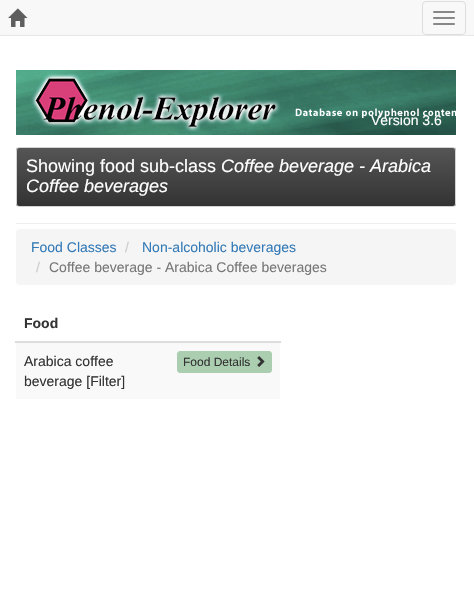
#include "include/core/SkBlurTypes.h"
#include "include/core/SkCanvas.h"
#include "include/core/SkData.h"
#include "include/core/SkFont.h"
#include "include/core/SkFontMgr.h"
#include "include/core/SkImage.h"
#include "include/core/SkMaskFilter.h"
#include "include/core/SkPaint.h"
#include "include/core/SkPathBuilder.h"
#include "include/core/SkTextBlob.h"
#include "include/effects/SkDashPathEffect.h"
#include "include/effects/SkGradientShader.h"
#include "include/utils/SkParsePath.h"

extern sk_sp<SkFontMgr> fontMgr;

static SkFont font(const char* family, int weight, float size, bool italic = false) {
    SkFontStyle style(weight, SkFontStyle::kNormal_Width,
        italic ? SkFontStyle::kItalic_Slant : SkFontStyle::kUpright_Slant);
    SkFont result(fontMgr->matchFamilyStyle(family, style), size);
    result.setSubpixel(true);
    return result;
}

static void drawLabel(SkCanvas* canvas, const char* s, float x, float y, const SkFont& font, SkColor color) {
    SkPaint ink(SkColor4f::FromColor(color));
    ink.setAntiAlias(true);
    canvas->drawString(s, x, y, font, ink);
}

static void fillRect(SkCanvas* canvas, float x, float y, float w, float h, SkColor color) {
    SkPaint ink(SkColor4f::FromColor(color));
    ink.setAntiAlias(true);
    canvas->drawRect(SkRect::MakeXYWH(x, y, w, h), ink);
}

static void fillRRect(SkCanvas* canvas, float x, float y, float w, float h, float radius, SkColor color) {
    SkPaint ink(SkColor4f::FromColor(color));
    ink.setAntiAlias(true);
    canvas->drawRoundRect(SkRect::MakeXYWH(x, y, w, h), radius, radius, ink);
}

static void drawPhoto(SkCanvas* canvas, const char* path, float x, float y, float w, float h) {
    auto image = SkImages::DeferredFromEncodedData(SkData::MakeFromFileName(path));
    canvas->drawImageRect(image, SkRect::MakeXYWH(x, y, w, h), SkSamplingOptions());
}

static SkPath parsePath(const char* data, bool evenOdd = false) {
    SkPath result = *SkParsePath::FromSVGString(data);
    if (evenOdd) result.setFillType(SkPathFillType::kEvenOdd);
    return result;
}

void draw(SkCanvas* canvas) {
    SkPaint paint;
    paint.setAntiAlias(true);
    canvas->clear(0xFFFFFFFF);
    fillRect(canvas, 0, 0, 474, 35, 0xFFF8F8F8);
    fillRect(canvas, 0, 35, 474, 1, 0xFFE7E7E7);
    drawPhoto(canvas, "assets/img1.png", 8, 8, 20, 19);
    paint.setStroke(true);
    paint.setStrokeWidth(1);
    paint.setColor(0xFFDDDDDD);
    canvas->drawRoundRect(SkRect::MakeXYWH(422.5f, 1.5f, 43, 33), 3.5f, 3.5f, paint);
    fillRRect(canvas, 433, 11, 22, 2, 1, 0xFF888888);
    fillRRect(canvas, 433, 17, 22, 2, 1, 0xFF888888);
    fillRRect(canvas, 433, 23, 22, 2, 1, 0xFF888888);
    drawPhoto(canvas, "assets/img2.png", 16, 70, 440, 65);
    SkFont font1 = font("Liberation Sans", 400, 14);
    drawLabel(canvas, "Version 3.6", 371, 125, font1, 0xFFFFFFFF);
    fillRect(canvas, 16, 223, 440, 1, 0xFFEEEEEE);
    canvas->save();
    canvas->clipPath(parsePath("M19 147H453C454.5 147 456 148.5 456 150V204C456 205.5 454.5 207 453 207H19C17.5 207 16 205.5 16 204V150C16 148.5 17.5 147 19 147Z"), true);
    paint.setStroke(false);
    {
        const SkColor colors[] = {0xFF555555, 0xFF333333};
        const float stops[] = {0, 1};
        const SkPoint ends[] = {{236, 148}, {236, 206}};
        paint.setShader(SkGradientShader::MakeLinear(ends, colors, stops, 2, SkTileMode::kClamp));
        paint.setAlpha(255);
    }
    canvas->drawRect(SkRect::MakeXYWH(16, 148, 440, 58), paint);
    canvas->restore();
    paint.setStroke(true);
    paint.setShader(nullptr);
    paint.setColor(0xFFD3D3D3);
    canvas->drawRoundRect(SkRect::MakeXYWH(16.5f, 147.5f, 439, 59), 2.5f, 2.5f, paint);
    SkFont font2 = font("Liberation Sans", 400, 18);
    drawLabel(canvas, "Showing food sub-class", 26, 172, font2, 0xFFFFFFFF);
    SkFont font3 = font("Liberation Sans", 400, 18, true);
    drawLabel(canvas, "Coffee beverage - Arabica", 221, 172, font3, 0xFFFFFFFF);
    drawLabel(canvas, "Coffee beverages", 26, 192, font3, 0xFFFFFFFF);
    fillRRect(canvas, 16, 229, 440, 56, 4, 0xFFF5F5F5);
    drawLabel(canvas, "Food Classes", 31, 252, font1, 0xFF337AB7);
    drawLabel(canvas, "/", 125, 252, font1, 0xFFCCCCCC);
    drawLabel(canvas, "Non-alcoholic beverages", 142, 252, font1, 0xFF337AB7);
    drawLabel(canvas, "/", 36, 272, font1, 0xFFCCCCCC);
    drawLabel(canvas, "Coffee beverage - Arabica Coffee beverages", 49, 272, font1, 0xFF777777);
    SkFont font4 = font("Liberation Sans", 700, 14);
    drawLabel(canvas, "Food", 24, 328, font4, 0xFF333333);
    fillRect(canvas, 15, 341, 266, 2, 0xFFDDDDDD);
    fillRect(canvas, 16, 343, 264, 56, 0xFFF9F9F9);
    drawLabel(canvas, "Arabica coffee", 24, 366, font1, 0xFF333333);
    drawLabel(canvas, "beverage [Filter]", 24, 386, font1, 0xFF333333);
    paint.setStroke(false);
    paint.setColor(0xFFABCEB1);
    canvas->drawRoundRect(SkRect::MakeXYWH(177.5f, 351.5f, 94, 21), 2.5f, 2.5f, paint);
    paint.setStroke(true);
    paint.setColor(0xFFABCDB1);
    canvas->drawRoundRect(SkRect::MakeXYWH(177.5f, 351.5f, 94, 21), 2.5f, 2.5f, paint);
    SkFont font5 = font("Liberation Sans", 400, 12);
    drawLabel(canvas, "Food Details", 183, 366, font5, 0xFF333333);
    drawPhoto(canvas, "assets/img3.png", 257, 356, 8, 11);
}
